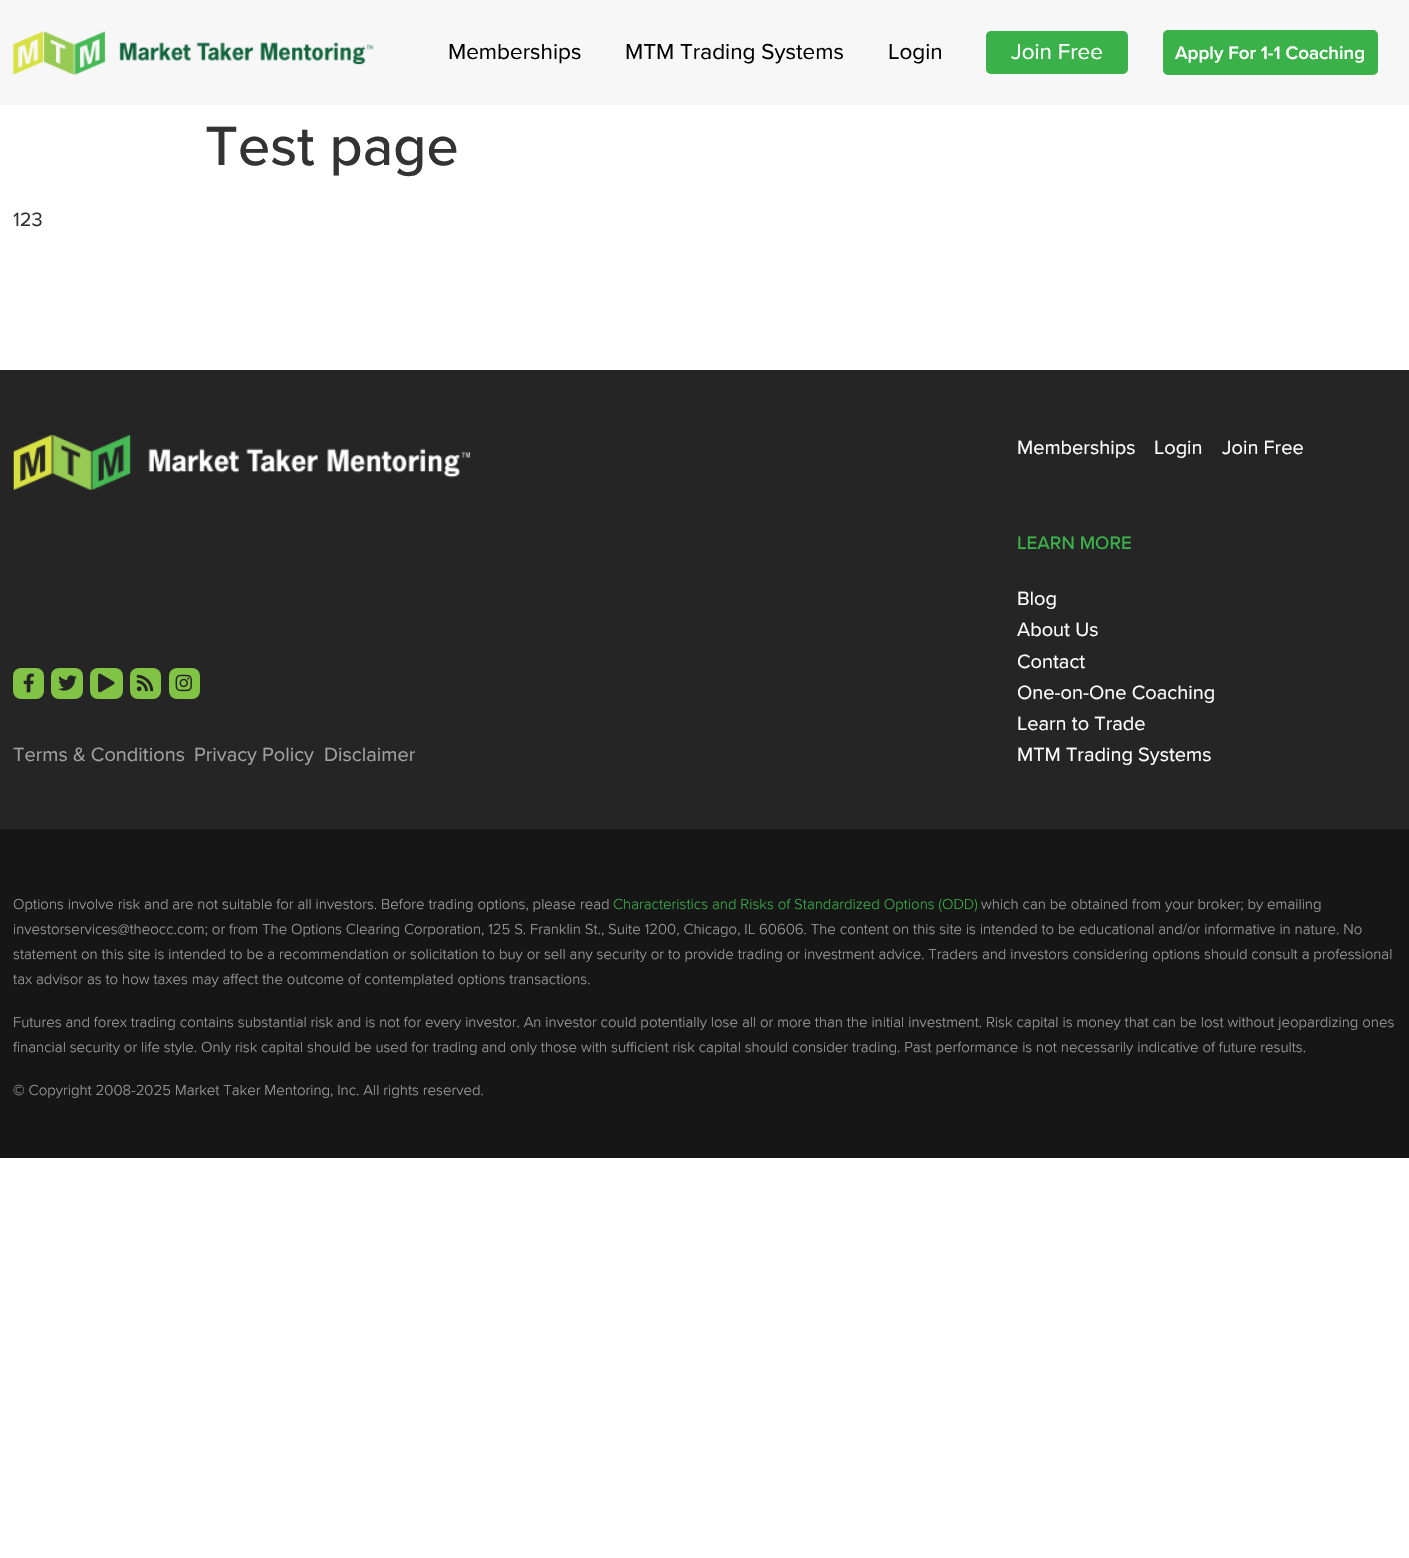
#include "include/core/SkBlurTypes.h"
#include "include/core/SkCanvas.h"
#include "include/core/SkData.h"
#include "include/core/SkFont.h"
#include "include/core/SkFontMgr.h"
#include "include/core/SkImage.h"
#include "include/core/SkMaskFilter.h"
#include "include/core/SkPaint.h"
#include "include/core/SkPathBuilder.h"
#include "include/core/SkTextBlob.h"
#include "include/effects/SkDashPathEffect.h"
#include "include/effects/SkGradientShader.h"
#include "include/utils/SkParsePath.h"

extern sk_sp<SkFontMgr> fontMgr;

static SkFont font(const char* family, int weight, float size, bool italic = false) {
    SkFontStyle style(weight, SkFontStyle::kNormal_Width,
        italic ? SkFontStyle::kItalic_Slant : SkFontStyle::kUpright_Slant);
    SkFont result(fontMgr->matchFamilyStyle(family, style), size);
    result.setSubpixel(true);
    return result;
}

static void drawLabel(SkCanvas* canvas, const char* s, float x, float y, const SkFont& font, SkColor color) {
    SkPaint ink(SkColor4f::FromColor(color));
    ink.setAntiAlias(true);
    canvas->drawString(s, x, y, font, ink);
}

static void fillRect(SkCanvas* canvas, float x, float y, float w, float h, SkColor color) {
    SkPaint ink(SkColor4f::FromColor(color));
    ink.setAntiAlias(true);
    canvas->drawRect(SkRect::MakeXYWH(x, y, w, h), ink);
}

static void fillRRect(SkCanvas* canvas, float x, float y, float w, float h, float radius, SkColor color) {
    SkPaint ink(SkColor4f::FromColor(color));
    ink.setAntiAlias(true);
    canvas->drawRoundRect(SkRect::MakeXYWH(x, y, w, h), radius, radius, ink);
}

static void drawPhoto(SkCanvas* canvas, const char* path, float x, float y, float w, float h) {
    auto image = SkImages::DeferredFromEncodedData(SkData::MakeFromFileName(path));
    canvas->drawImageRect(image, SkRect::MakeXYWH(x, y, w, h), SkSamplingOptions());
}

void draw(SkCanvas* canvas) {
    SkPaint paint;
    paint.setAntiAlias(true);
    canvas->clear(0xFFFFFFFF);
    fillRect(canvas, 0, 0, 1409, 105, 0xFFF7F7F8);
    drawPhoto(canvas, "assets/img1.png", 12, 31, 362, 44);
    SkFont font1 = font("Proxima Nova", 400, 22.5f);
    drawLabel(canvas, "Memberships", 448, 59, font1, 0xFF000000);
    drawLabel(canvas, "MTM Trading Systems", 625, 59, font1, 0xFF000000);
    drawLabel(canvas, "Login", 888, 59, font1, 0xFF000000);
    fillRRect(canvas, 986, 31, 142, 43, 5, 0xFF3AB149);
    drawLabel(canvas, "Join Free", 1011, 59, font1, 0xFFFFFFFF);
    fillRRect(canvas, 1163, 30, 215, 45, 5, 0xFF3AB149);
    SkFont font2 = font("Proxima Nova", 600, 18.75f);
    drawLabel(canvas, "Apply For 1-1 Coaching", 1175, 59, font2, 0xFFFFFFFF);
    SkFont font3 = font("Proxima Nova", 500, 57.5f);
    drawLabel(canvas, "Test page", 205, 165, font3, 0xFF333333);
    SkFont font4 = font("Proxima Nova", 400, 20);
    drawLabel(canvas, "123", 13, 226, font4, 0xFF333333);
    fillRect(canvas, 0, 370, 1409, 459, 0xFF252525);
    drawPhoto(canvas, "assets/img2.png", 13, 435, 457, 55);
    drawLabel(canvas, "Memberships", 1017, 454, font4, 0xFFFFFFFF);
    drawLabel(canvas, "Login", 1154, 454, font4, 0xFFFFFFFF);
    drawLabel(canvas, "Join Free", 1222, 454, font4, 0xFFFFFFFF);
    fillRRect(canvas, 13, 668, 31, 31, 8, 0xFF81C345);
    drawPhoto(canvas, "assets/img3.png", 23, 673, 11, 20);
    fillRRect(canvas, 51, 668, 32, 31, 8, 0xFF81C345);
    drawPhoto(canvas, "assets/img4.png", 58, 675, 19, 16);
    fillRRect(canvas, 90, 668, 33, 31, 8, 0xFF81C345);
    drawPhoto(canvas, "assets/img5.png", 98, 673, 17, 20);
    fillRRect(canvas, 130, 668, 31, 31, 8, 0xFF81C345);
    drawPhoto(canvas, "assets/img6.png", 136, 674, 18, 18);
    fillRRect(canvas, 169, 668, 31, 31, 8, 0xFF81C345);
    drawPhoto(canvas, "assets/img7.png", 175, 674, 17, 18);
    drawLabel(canvas, "Terms & Conditions", 13, 761, font4, 0xFFA1A1A1);
    drawLabel(canvas, "Privacy Policy", 194, 761, font4, 0xFFA1A1A1);
    drawLabel(canvas, "Disclaimer", 324, 761, font4, 0xFFA1A1A1);
    SkFont font5 = font("Proxima Nova", 500, 18.75f);
    drawLabel(canvas, "LEARN MORE", 1017, 549, font5, 0xFF3AB149);
    drawLabel(canvas, "Blog", 1017, 605, font4, 0xFFFFFFFF);
    drawLabel(canvas, "About Us", 1017, 636, font4, 0xFFFFFFFF);
    drawLabel(canvas, "Contact", 1017, 668, font4, 0xFFFFFFFF);
    drawLabel(canvas, "One-on-One Coaching", 1017, 699, font4, 0xFFFFFFFF);
    drawLabel(canvas, "Learn to Trade", 1017, 730, font4, 0xFFFFFFFF);
    drawLabel(canvas, "MTM Trading Systems", 1017, 761, font4, 0xFFFFFFFF);
    fillRect(canvas, 0, 829, 1409, 329, 0xFF161616);
    SkFont font6 = font("Proxima Nova", 300, 15);
    drawLabel(canvas, "Options involve risk and are not suitable for all investors. Before trading options, please read", 13, 909, font6, 0xFFA1A1A1);
    drawLabel(canvas, "Characteristics and Risks of Standardized Options (ODD)", 613, 909, font6, 0xFF3AB149);
    drawLabel(canvas, "which can be obtained from your broker; by emailing", 981, 909, font6, 0xFFA1A1A1);
    drawLabel(canvas, "investorservices@theocc.com; or from The Options Clearing Corporation, 125 S. Franklin St., Suite 1200, Chicago, IL 60606. The content on this site is intended to be educational and/or informative in nature. No", 13, 934, font6, 0xFFA1A1A1);
    drawLabel(canvas, "statement on this site is intended to be a recommendation or solicitation to buy or sell any security or to provide trading or investment advice. Traders and investors considering options should consult a professional", 13, 959, font6, 0xFFA1A1A1);
    drawLabel(canvas, "tax advisor as to how taxes may affect the outcome of contemplated options transactions.", 13, 984, font6, 0xFFA1A1A1);
    drawLabel(canvas, "Futures and forex trading contains substantial risk and is not for every investor. An investor could potentially lose all or more than the initial investment. Risk capital is money that can be lost without jeopardizing ones", 13, 1027, font6, 0xFFA1A1A1);
    drawLabel(canvas, "financial security or life style. Only risk capital should be used for trading and only those with sufficient risk capital should consider trading. Past performance is not necessarily indicative of future results.", 13, 1052, font6, 0xFFA1A1A1);
    drawLabel(canvas, "© Copyright 2008-2025 Market Taker Mentoring, Inc. All rights reserved.", 13, 1095, font6, 0xFFA1A1A1);
}
